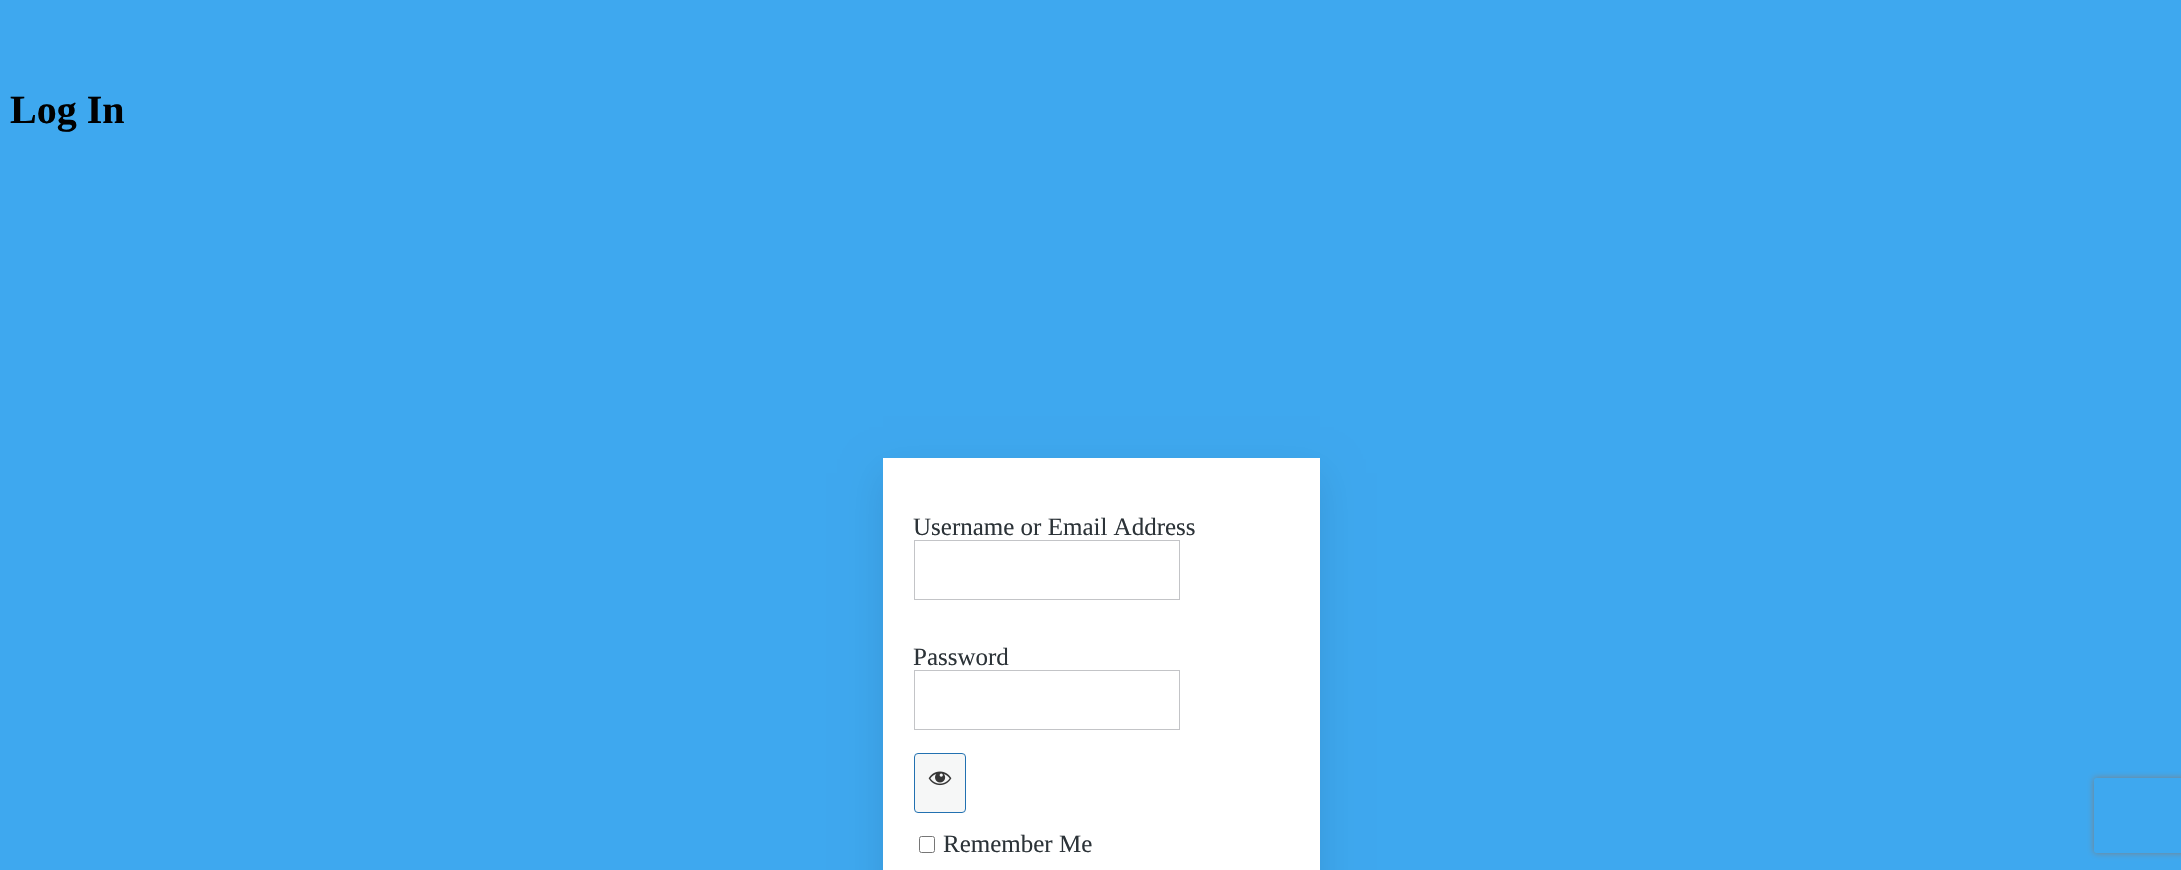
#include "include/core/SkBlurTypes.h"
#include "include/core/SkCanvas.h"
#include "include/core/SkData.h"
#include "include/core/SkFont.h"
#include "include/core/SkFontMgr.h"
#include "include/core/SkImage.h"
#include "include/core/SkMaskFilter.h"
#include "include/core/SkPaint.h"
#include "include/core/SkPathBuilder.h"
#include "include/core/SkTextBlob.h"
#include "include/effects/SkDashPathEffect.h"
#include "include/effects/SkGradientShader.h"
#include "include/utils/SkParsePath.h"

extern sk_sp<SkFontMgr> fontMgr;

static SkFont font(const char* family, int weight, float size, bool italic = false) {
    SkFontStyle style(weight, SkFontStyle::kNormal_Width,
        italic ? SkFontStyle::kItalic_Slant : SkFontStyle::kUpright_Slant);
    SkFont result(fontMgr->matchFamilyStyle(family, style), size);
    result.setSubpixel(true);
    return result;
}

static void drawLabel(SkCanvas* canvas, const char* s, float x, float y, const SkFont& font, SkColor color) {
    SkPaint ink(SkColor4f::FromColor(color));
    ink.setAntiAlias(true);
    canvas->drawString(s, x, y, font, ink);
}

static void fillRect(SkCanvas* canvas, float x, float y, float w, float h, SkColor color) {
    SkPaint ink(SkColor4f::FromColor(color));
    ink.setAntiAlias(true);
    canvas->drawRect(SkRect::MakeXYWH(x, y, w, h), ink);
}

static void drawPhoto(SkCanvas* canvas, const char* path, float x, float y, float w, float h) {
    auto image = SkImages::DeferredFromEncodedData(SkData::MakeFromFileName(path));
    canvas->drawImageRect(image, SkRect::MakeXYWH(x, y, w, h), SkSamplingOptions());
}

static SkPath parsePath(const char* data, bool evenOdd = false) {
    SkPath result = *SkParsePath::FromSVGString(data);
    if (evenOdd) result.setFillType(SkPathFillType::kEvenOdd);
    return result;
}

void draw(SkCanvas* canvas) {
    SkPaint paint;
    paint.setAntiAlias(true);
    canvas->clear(0xFF3EA8EF);
    SkFont font1 = font("Liberation Serif", 700, 40);
    drawLabel(canvas, "Log In", 10, 123, font1, 0xFF000000);
    paint.setColor(0x1A000000);
    paint.setMaskFilter(SkMaskFilter::MakeBlur(kNormal_SkBlurStyle, 19));
    canvas->drawRect(SkRect::MakeXYWH(883, 473, 437, 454), paint);
    paint.setMaskFilter(nullptr);
    fillRect(canvas, 883, 458, 437, 412, 0xFFFFFFFF);
    SkFont font2 = font("Liberation Serif", 400, 25);
    drawLabel(canvas, "Username or Email Address", 913, 535, font2, 0xFF2C3338);
    paint.setStroke(true);
    paint.setStrokeWidth(1);
    paint.setColor(0xFFC3C4C7);
    canvas->drawRect(SkRect::MakeXYWH(914.5f, 540.5f, 265, 59), paint);
    drawLabel(canvas, "Password", 913, 665, font2, 0xFF2C3338);
    canvas->drawRect(SkRect::MakeXYWH(914.5f, 670.5f, 265, 59), paint);
    paint.setStroke(false);
    paint.setColor(0xFFF6F7F7);
    canvas->drawRoundRect(SkRect::MakeXYWH(914.5f, 753.5f, 51, 59), 3.5f, 3.5f, paint);
    paint.setStroke(true);
    paint.setColor(0xFF2271B1);
    canvas->drawRoundRect(SkRect::MakeXYWH(914.5f, 753.5f, 51, 59), 3.5f, 3.5f, paint);
    drawPhoto(canvas, "assets/img1.png", 928, 771, 24, 15);
    paint.setColor(0xFF767676);
    canvas->drawRoundRect(SkRect::MakeXYWH(919.5f, 836.5f, 15, 16), 2, 2, paint);
    drawLabel(canvas, "Remember Me", 943, 852, font2, 0xFF2C3338);
    canvas->save();
    canvas->clipPath(parsePath("M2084 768H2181V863H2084ZM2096.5 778H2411.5C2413 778 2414 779 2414 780.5V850.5C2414 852 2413 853 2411.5 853H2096.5C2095 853 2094 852 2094 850.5V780.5C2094 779 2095 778 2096.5 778Z", true), true);
    paint.setStroke(false);
    paint.setColor(0xFF808080);
    paint.setMaskFilter(SkMaskFilter::MakeBlur(kNormal_SkBlurStyle, 3));
    canvas->drawRoundRect(SkRect::MakeXYWH(2094, 778, 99, 75), 2.5f, 2.5f, paint);
    paint.setMaskFilter(nullptr);
    canvas->restore();
}
